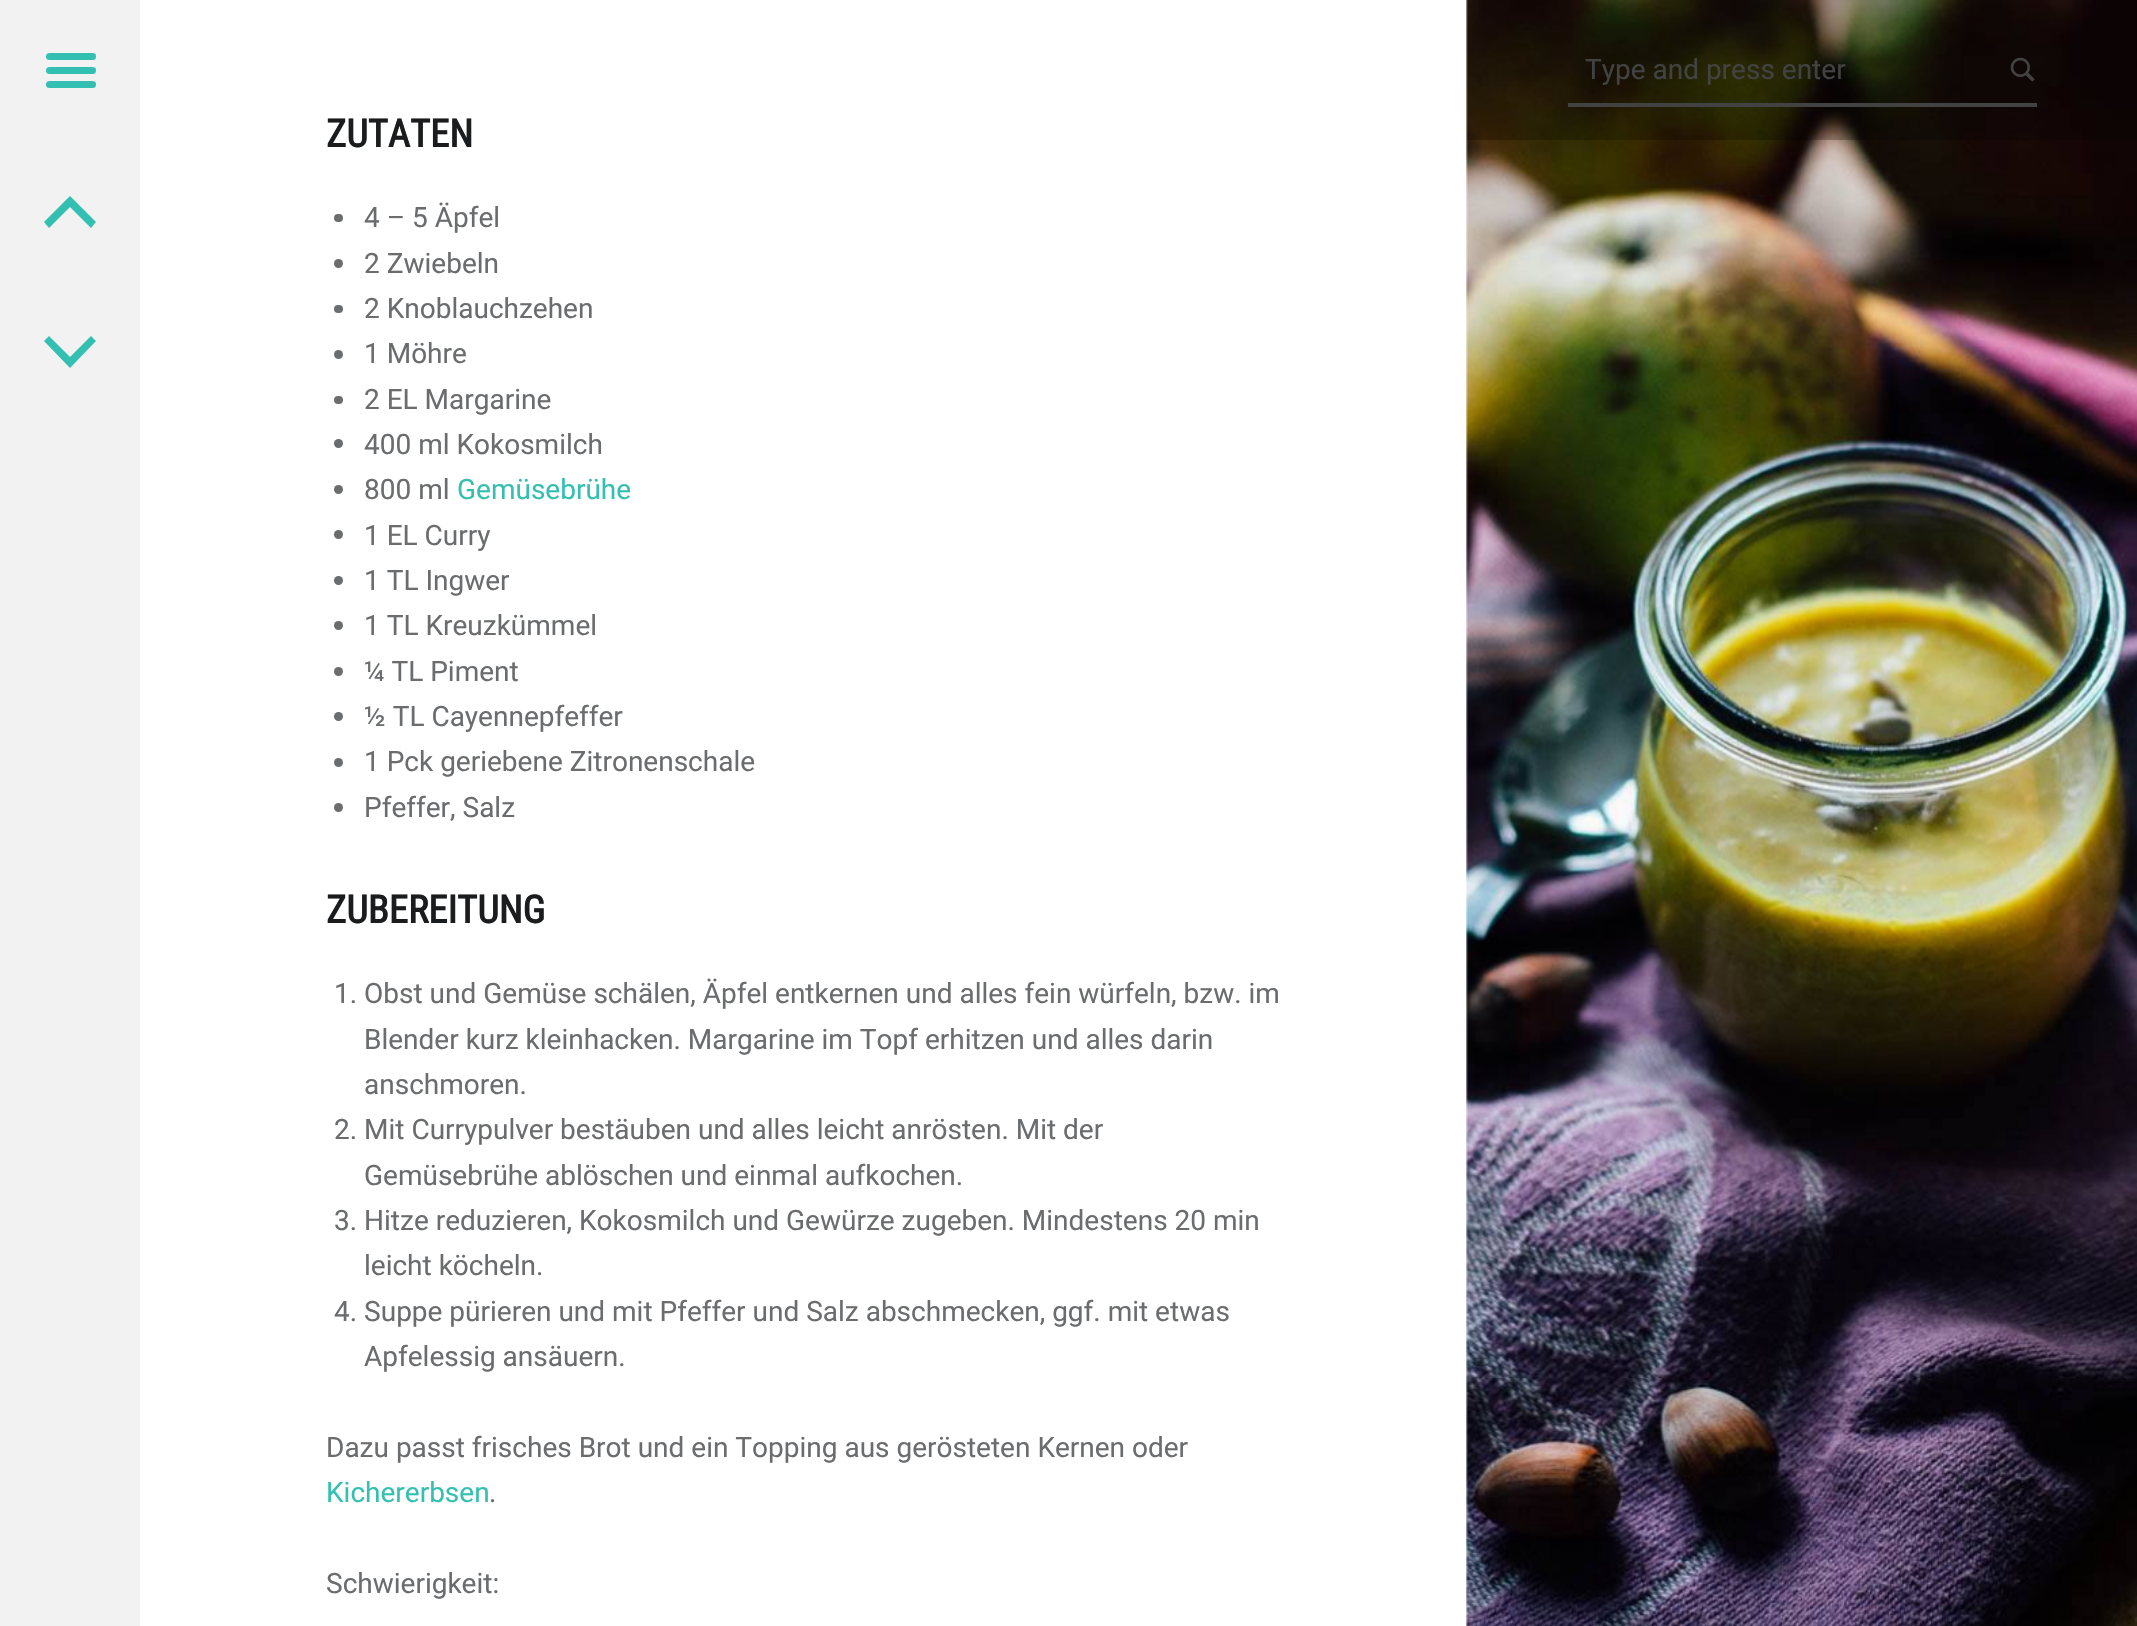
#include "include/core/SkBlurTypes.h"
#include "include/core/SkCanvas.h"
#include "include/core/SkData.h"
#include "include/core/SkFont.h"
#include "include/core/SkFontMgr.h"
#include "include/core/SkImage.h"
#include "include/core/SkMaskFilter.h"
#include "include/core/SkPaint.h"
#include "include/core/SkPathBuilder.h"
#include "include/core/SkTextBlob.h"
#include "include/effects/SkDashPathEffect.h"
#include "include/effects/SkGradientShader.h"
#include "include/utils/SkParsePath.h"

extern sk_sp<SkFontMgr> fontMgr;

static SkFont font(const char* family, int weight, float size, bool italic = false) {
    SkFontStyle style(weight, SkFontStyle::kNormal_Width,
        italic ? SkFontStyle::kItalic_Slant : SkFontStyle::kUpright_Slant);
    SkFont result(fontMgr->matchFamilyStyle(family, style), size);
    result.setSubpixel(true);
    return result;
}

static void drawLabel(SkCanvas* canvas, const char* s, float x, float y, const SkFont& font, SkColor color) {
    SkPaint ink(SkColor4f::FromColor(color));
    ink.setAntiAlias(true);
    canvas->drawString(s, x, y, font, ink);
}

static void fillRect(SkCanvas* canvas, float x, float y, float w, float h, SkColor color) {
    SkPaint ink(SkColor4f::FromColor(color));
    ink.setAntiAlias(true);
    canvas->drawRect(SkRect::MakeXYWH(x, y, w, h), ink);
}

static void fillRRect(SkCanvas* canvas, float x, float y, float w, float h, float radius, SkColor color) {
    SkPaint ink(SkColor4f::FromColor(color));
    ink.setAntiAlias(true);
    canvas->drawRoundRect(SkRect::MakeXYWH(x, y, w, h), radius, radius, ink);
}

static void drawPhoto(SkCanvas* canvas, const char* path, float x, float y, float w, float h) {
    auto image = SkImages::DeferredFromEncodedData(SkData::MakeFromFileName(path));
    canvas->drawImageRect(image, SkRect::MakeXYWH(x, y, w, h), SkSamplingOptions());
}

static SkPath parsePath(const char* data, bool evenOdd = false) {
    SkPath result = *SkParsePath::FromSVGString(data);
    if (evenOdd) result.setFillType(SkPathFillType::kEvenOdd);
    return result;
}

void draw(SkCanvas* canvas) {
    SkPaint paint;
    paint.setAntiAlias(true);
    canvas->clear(0xFFFFFFFF);
    fillRect(canvas, 0, 0, 140, 1626, 0xFFF2F2F2);
    fillRRect(canvas, 46, 53, 50, 7, 3.5f, 0xFF33BFB1);
    fillRRect(canvas, 46, 67, 50, 7, 3.5f, 0xFF33BFB1);
    fillRRect(canvas, 46, 81, 50, 7, 3.5f, 0xFF33BFB1);
    paint.setColor(0xFF33BFB1);
    canvas->drawPath(parsePath("M70 196L96 222L91 228L70 207L49 228L44 222Z"), paint);
    canvas->drawPath(parsePath("M70 368L44 341L49 336L70 357L91 336L96 341Z"), paint);
    drawPhoto(canvas, "assets/img2.png", 1466, 0, 671, 1626);
    fillRect(canvas, 1467, 0, 670, 140, 0x40000000);
    fillRect(canvas, 1568, 103, 469, 4, 0xFF424242);
    SkFont font1 = font("Roboto", 400, 28);
    drawLabel(canvas, "Type and press enter", 1585, 79, font1, 0xFF424242);
    drawPhoto(canvas, "assets/img1.png", 2010, 57, 25, 25);
    SkFont font2 = font("Roboto Condensed", 700, 38.5f);
    drawLabel(canvas, "ZUTATEN", 326, 147, font2, 0xFF1A1C1E);
    fillRRect(canvas, 334, 214, 9, 8, 4, 0xFF6A6C6E);
    drawLabel(canvas, "4 – 5 Äpfel", 364, 227, font1, 0xFF6A6C6E);
    paint.setColor(0xFF6A6C6E);
    canvas->drawCircle(338.5f, 263.5f, 4.5f, paint);
    drawLabel(canvas, "2 Zwiebeln", 364, 273, font1, 0xFF6A6C6E);
    fillRRect(canvas, 334, 305, 9, 8, 4, 0xFF6A6C6E);
    drawLabel(canvas, "2 Knoblauchzehen", 364, 318, font1, 0xFF6A6C6E);
    canvas->drawCircle(338.5f, 354.5f, 4.5f, paint);
    drawLabel(canvas, "1 Möhre", 364, 363, font1, 0xFF6A6C6E);
    fillRRect(canvas, 334, 396, 9, 8, 4, 0xFF6A6C6E);
    drawLabel(canvas, "2 EL Margarine", 364, 409, font1, 0xFF6A6C6E);
    canvas->drawCircle(338.5f, 443.5f, 4.5f, paint);
    drawLabel(canvas, "400 ml Kokosmilch", 364, 454, font1, 0xFF6A6C6E);
    canvas->drawCircle(338.5f, 489.5f, 4.5f, paint);
    drawLabel(canvas, "800 ml", 364, 499, font1, 0xFF6A6C6E);
    drawLabel(canvas, "Gemüsebrühe", 457, 499, font1, 0xFF33BFB1);
    canvas->drawCircle(338.5f, 534.5f, 4.5f, paint);
    drawLabel(canvas, "1 EL Curry", 364, 545, font1, 0xFF6A6C6E);
    canvas->drawCircle(338.5f, 580.5f, 4.5f, paint);
    drawLabel(canvas, "1 TL Ingwer", 364, 590, font1, 0xFF6A6C6E);
    canvas->drawCircle(338.5f, 625.5f, 4.5f, paint);
    drawLabel(canvas, "1 TL Kreuzkümmel", 364, 635, font1, 0xFF6A6C6E);
    canvas->drawCircle(338.5f, 671.5f, 4.5f, paint);
    drawLabel(canvas, "¼ TL Piment", 364, 681, font1, 0xFF6A6C6E);
    canvas->drawCircle(338.5f, 716.5f, 4.5f, paint);
    drawLabel(canvas, "½ TL Cayennepfeffer", 364, 726, font1, 0xFF6A6C6E);
    canvas->drawCircle(338.5f, 762.5f, 4.5f, paint);
    drawLabel(canvas, "1 Pck geriebene Zitronenschale", 364, 771, font1, 0xFF6A6C6E);
    canvas->drawCircle(338.5f, 807.5f, 4.5f, paint);
    drawLabel(canvas, "Pfeffer, Salz", 364, 817, font1, 0xFF6A6C6E);
    drawLabel(canvas, "ZUBEREITUNG", 326, 923, font2, 0xFF1A1C1E);
    drawLabel(canvas, "1. Obst und Gemüse schälen, Äpfel entkernen und alles fein würfeln, bzw. im", 334, 1003, font1, 0xFF6A6C6E);
    drawLabel(canvas, "Blender kurz kleinhacken. Margarine im Topf erhitzen und alles darin", 364, 1049, font1, 0xFF6A6C6E);
    drawLabel(canvas, "anschmoren.", 364, 1094, font1, 0xFF6A6C6E);
    drawLabel(canvas, "2. Mit Currypulver bestäuben und alles leicht anrösten. Mit der", 334, 1139, font1, 0xFF6A6C6E);
    drawLabel(canvas, "Gemüsebrühe ablöschen und einmal aufkochen.", 364, 1185, font1, 0xFF6A6C6E);
    drawLabel(canvas, "3. Hitze reduzieren, Kokosmilch und Gewürze zugeben. Mindestens 20 min", 334, 1230, font1, 0xFF6A6C6E);
    drawLabel(canvas, "leicht köcheln.", 364, 1275, font1, 0xFF6A6C6E);
    drawLabel(canvas, "4. Suppe pürieren und mit Pfeffer und Salz abschmecken, ggf. mit etwas", 334, 1321, font1, 0xFF6A6C6E);
    drawLabel(canvas, "Apfelessig ansäuern.", 364, 1366, font1, 0xFF6A6C6E);
    drawLabel(canvas, "Dazu passt frisches Brot und ein Topping aus gerösteten Kernen oder", 326, 1457, font1, 0xFF6A6C6E);
    drawLabel(canvas, "Kichererbsen", 326, 1502, font1, 0xFF33BFB1);
    drawLabel(canvas, ".", 489, 1502, font1, 0xFF6A6C6E);
    drawLabel(canvas, "Schwierigkeit:", 326, 1593, font1, 0xFF6A6C6E);
}
